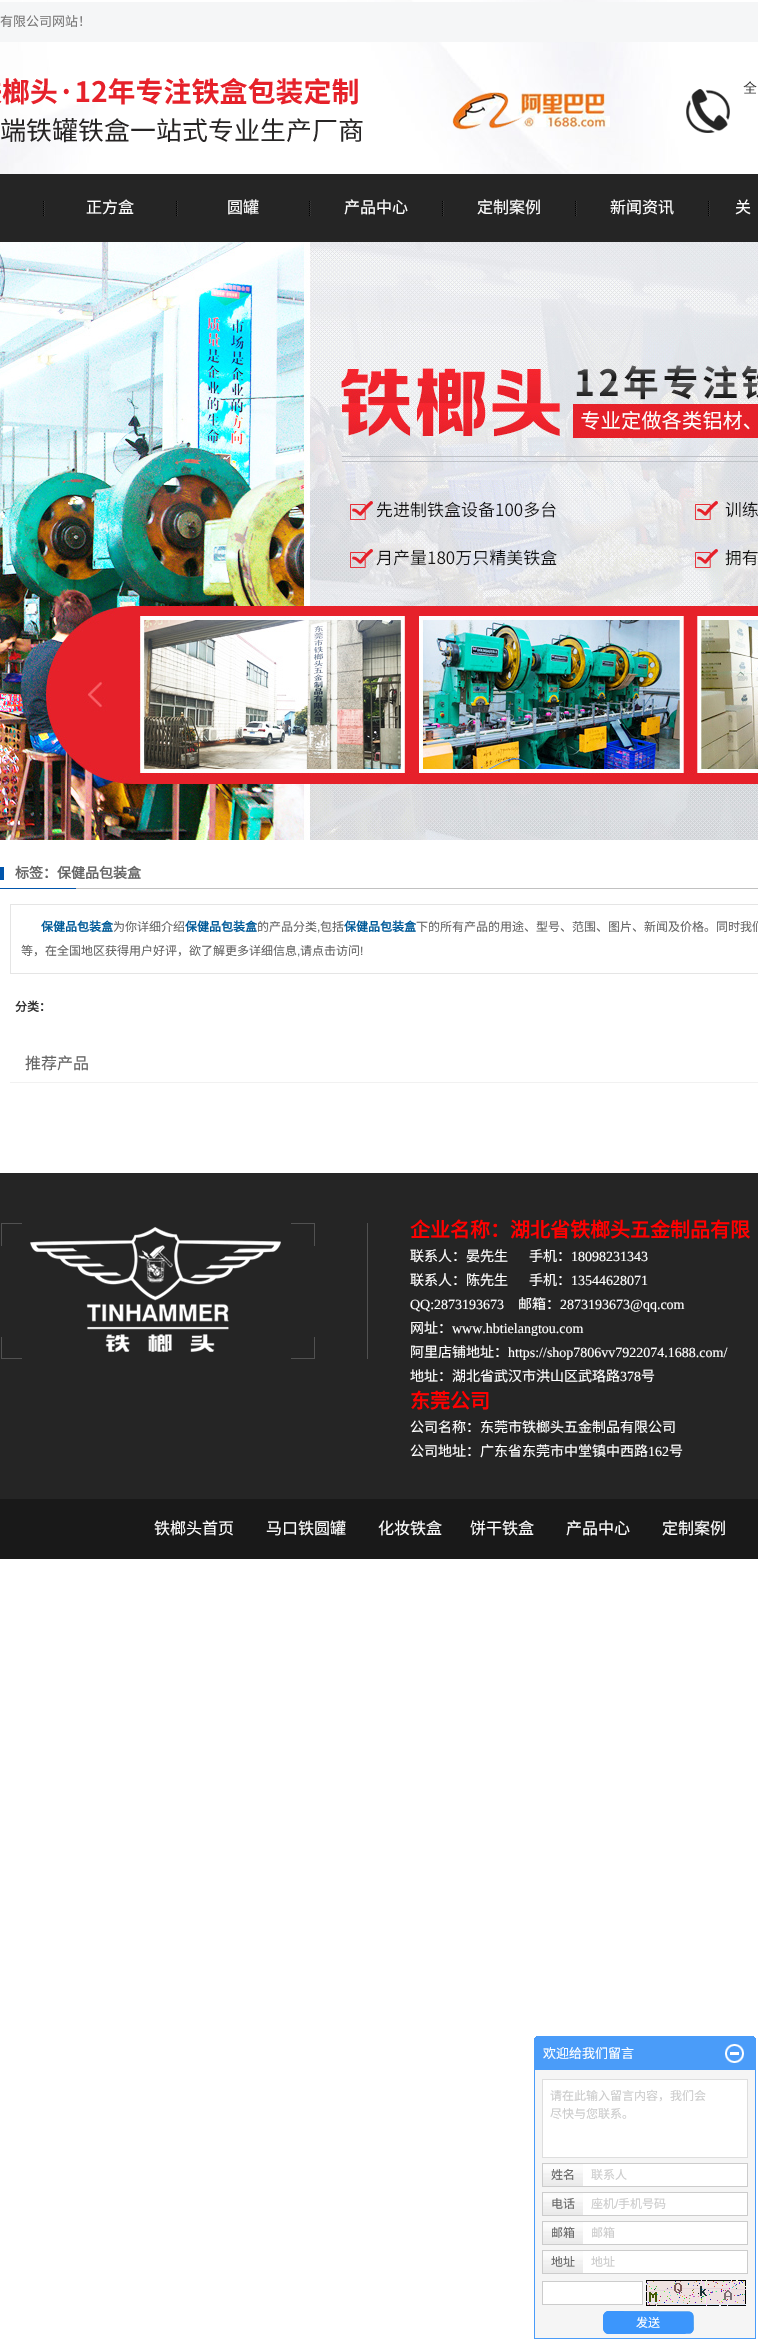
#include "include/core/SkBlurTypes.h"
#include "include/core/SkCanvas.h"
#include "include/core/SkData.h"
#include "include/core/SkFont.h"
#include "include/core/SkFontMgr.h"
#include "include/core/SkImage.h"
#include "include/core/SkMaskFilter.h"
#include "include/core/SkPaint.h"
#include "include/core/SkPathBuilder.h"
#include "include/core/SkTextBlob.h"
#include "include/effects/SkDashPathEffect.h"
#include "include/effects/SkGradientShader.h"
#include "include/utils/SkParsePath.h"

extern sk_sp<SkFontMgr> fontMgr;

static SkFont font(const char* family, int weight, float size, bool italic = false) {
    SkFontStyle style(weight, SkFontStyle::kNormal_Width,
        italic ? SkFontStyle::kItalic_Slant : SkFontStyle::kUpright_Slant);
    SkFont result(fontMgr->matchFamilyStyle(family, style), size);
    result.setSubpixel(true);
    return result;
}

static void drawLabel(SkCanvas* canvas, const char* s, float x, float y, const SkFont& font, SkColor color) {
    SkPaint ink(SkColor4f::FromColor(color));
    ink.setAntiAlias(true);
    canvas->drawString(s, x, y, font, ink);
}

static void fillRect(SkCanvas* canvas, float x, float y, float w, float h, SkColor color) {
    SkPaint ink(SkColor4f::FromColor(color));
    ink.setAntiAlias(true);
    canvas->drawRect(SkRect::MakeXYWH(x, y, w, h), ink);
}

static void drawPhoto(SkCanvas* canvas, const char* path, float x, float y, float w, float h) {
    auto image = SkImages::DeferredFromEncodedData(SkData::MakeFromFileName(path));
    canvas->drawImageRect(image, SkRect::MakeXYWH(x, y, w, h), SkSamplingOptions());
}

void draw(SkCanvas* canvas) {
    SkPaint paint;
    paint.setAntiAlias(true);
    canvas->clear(0xFFFFFFFF);
    drawPhoto(canvas, "assets/img1.png", 0, 0, 758, 242);
    SkFont font1 = font("Noto Sans CJK SC", 400, 13);
    drawLabel(canvas, "有限公司网站！", 0, 26, font1, 0xFF7A7979);
    drawPhoto(canvas, "assets/img2.png", 0, 77, 363, 66);
    drawPhoto(canvas, "assets/img3.png", 452, 81, 305, 52);
    drawPhoto(canvas, "assets/img4.png", 43, 201, 2, 15);
    drawPhoto(canvas, "assets/img4.png", 176, 201, 2, 15);
    SkFont font2 = font("Noto Sans CJK SC", 400, 16);
    drawLabel(canvas, "正方盒", 86, 213, font2, 0xFFFFFFFF);
    drawPhoto(canvas, "assets/img4.png", 309, 201, 2, 15);
    drawLabel(canvas, "圆罐", 227, 213, font2, 0xFFFFFFFF);
    drawPhoto(canvas, "assets/img4.png", 442, 201, 2, 15);
    drawLabel(canvas, "产品中心", 344, 213, font2, 0xFFFFFFFF);
    drawPhoto(canvas, "assets/img4.png", 575, 201, 2, 15);
    drawLabel(canvas, "定制案例", 477, 213, font2, 0xFFFFFFFF);
    drawPhoto(canvas, "assets/img4.png", 708, 201, 2, 15);
    drawLabel(canvas, "新闻资讯", 610, 213, font2, 0xFFFFFFFF);
    drawLabel(canvas, "关", 735, 213, font2, 0xFFFFFFFF);
    drawPhoto(canvas, "assets/img5.png", 0, 242, 758, 598);
    drawPhoto(canvas, "assets/img6.png", 0, 867, 758, 22);
    SkFont font3 = font("Noto Sans CJK SC", 700, 14);
    drawLabel(canvas, "标签：保健品包装盒", 15, 878, font3, 0xFF666666);
    paint.setStroke(true);
    paint.setStrokeWidth(1);
    paint.setColor(0xFFE5E5E5);
    canvas->drawRect(SkRect::MakeXYWH(10.5f, 904.5f, 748, 69), paint);
    SkFont font4 = font("Noto Sans CJK SC", 700, 12);
    drawLabel(canvas, "保健品包装盒", 41, 931, font4, 0xFF005A98);
    SkFont font5 = font("Noto Sans CJK SC", 400, 12);
    drawLabel(canvas, "为你详细介绍", 113, 931, font5, 0xFF666666);
    drawLabel(canvas, "保健品包装盒", 185, 931, font4, 0xFF005A98);
    drawLabel(canvas, "的产品分类", 257, 931, font5, 0xFF666666);
    SkFont font6 = font("Liberation Sans", 400, 12);
    drawLabel(canvas, ",", 317, 931, font6, 0xFF666666);
    drawLabel(canvas, "包括", 320, 931, font5, 0xFF666666);
    drawLabel(canvas, "保健品包装盒", 344, 931, font4, 0xFF005A98);
    drawLabel(canvas, "下的所有产品的用途、型号、范围、图片、新闻及价格。同时我们", 416, 931, font5, 0xFF666666);
    drawLabel(canvas, "等，在全国地区获得用户好评，欲了解更多详细信息", 21, 955, font5, 0xFF666666);
    drawLabel(canvas, ",", 297, 955, font6, 0xFF666666);
    drawLabel(canvas, "请点击访问", 300, 955, font5, 0xFF666666);
    drawLabel(canvas, "!", 360, 955, font6, 0xFF666666);
    drawLabel(canvas, "分类：", 15, 1011, font4, 0xFF333333);
    fillRect(canvas, 10, 1082, 748, 1, 0xFFF1F1F1);
    drawLabel(canvas, "推荐产品", 25, 1069, font2, 0xFF666666);
    fillRect(canvas, 0, 1173, 758, 326, 0xFF252525);
    drawPhoto(canvas, "assets/img7.png", 1, 1223, 367, 136);
    SkFont font7 = font("Noto Sans CJK SC", 700, 20);
    drawLabel(canvas, "企业名称：湖北省铁榔头五金制品有限", 410, 1237, font7, 0xFFFF0000);
    SkFont font8 = font("Noto Sans CJK SC", 400, 14);
    drawLabel(canvas, "联系人：晏先生", 410, 1261, font8, 0xFFFFFFFF);
    drawLabel(canvas, "手机：", 529, 1261, font8, 0xFFFFFFFF);
    SkFont font9 = font("Liberation Serif", 400, 14);
    drawLabel(canvas, "18098231343", 571, 1261, font9, 0xFFFFFFFF);
    drawLabel(canvas, "联系人：陈先生", 410, 1285, font8, 0xFFFFFFFF);
    drawLabel(canvas, "手机：", 529, 1285, font8, 0xFFFFFFFF);
    drawLabel(canvas, "13544628071", 571, 1285, font9, 0xFFFFFFFF);
    drawLabel(canvas, "QQ:2873193673", 410, 1309, font9, 0xFFFFFFFF);
    drawLabel(canvas, "邮箱：", 518, 1309, font8, 0xFFFFFFFF);
    drawLabel(canvas, "2873193673@qq.com", 560, 1309, font9, 0xFFFFFFFF);
    drawLabel(canvas, "网址：", 410, 1333, font8, 0xFFFFFFFF);
    drawLabel(canvas, "www.hbtielangtou.com", 452, 1333, font9, 0xFFFFFFFF);
    drawLabel(canvas, "阿里店铺地址：", 410, 1357, font8, 0xFFFFFFFF);
    drawLabel(canvas, "https://shop7806vv7922074.1688.com/", 508, 1357, font9, 0xFFFFFFFF);
    drawLabel(canvas, "地址：湖北省武汉市洪山区武珞路", 410, 1381, font8, 0xFFFFFFFF);
    drawLabel(canvas, "378", 620, 1381, font9, 0xFFFFFFFF);
    drawLabel(canvas, "号", 641, 1381, font8, 0xFFFFFFFF);
    drawLabel(canvas, "东莞公司", 410, 1408, font7, 0xFFFF0000);
    drawLabel(canvas, "公司名称：东莞市铁榔头五金制品有限公司", 410, 1432, font8, 0xFFFFFFFF);
    drawLabel(canvas, "公司地址：广东省东莞市中堂镇中西路", 410, 1456, font8, 0xFFFFFFFF);
    drawLabel(canvas, "162", 648, 1456, font9, 0xFFFFFFFF);
    drawLabel(canvas, "号", 669, 1456, font8, 0xFFFFFFFF);
    fillRect(canvas, 0, 1499, 758, 60, 0xFF191919);
    drawLabel(canvas, "铁榔头首页", 154, 1534, font2, 0xFFFFFFFF);
    drawLabel(canvas, "马口铁圆罐", 266, 1534, font2, 0xFFFFFFFF);
    drawLabel(canvas, "化妆铁盒", 378, 1534, font2, 0xFFFFFFFF);
    drawLabel(canvas, "饼干铁盒", 470, 1534, font2, 0xFFFFFFFF);
    drawLabel(canvas, "产品中心", 566, 1534, font2, 0xFFFFFFFF);
    drawLabel(canvas, "定制案例", 662, 1534, font2, 0xFFFFFFFF);
    fillRect(canvas, 536, 2036, 218, 1, 0xFF4A9CF9);
    fillRect(canvas, 535, 2037, 220, 1, 0xFF4A9CF9);
    fillRect(canvas, 534, 2038, 222, 31, 0xFF4A9CF9);
    drawLabel(canvas, "欢迎给我们留言", 543, 2058, font1, 0xFFFFFFFF);
    drawPhoto(canvas, "assets/img8.png", 725, 2044, 19, 19);
    paint.setStroke(false);
    paint.setColor(0xFFF5F5F5);
    canvas->drawRect(SkRect::MakeXYWH(534.5f, 2069.5f, 221, 269), paint);
    paint.setStroke(true);
    paint.setColor(0xFF4A9CF9);
    canvas->drawRect(SkRect::MakeXYWH(534.5f, 2069.5f, 221, 269), paint);
    paint.setStroke(false);
    paint.setColor(0xFFFFFFFF);
    canvas->drawRect(SkRect::MakeXYWH(542.5f, 2079.5f, 205, 78), paint);
    paint.setStroke(true);
    paint.setColor(0xFFDEDEDE);
    canvas->drawRect(SkRect::MakeXYWH(542.5f, 2079.5f, 205, 78), paint);
    drawLabel(canvas, "请在此输入留言内容，我们会", 550, 2100, font5, 0xFFCCCCCC);
    drawLabel(canvas, "尽快与您联系。", 550, 2118, font5, 0xFFCCCCCC);
    fillRect(canvas, 583, 2164, 164, 22, 0xFFFFFFFF);
    paint.setColor(0xFFCCCCCC);
    canvas->drawRect(SkRect::MakeXYWH(542.5f, 2163.5f, 205, 23), paint);
    drawPhoto(canvas, "assets/img9.png", 543, 2164, 40, 22);
    drawLabel(canvas, "姓名", 551, 2179, font5, 0xFF666666);
    drawLabel(canvas, "联系人", 591, 2179, font5, 0xFFCCCCCC);
    fillRect(canvas, 583, 2193, 164, 22, 0xFFFFFFFF);
    canvas->drawRect(SkRect::MakeXYWH(542.5f, 2192.5f, 205, 23), paint);
    drawPhoto(canvas, "assets/img9.png", 543, 2193, 40, 22);
    drawLabel(canvas, "电话", 551, 2208, font5, 0xFF666666);
    drawLabel(canvas, "座机", 591, 2208, font5, 0xFFCCCCCC);
    drawLabel(canvas, "/", 615, 2208, font6, 0xFFCCCCCC);
    drawLabel(canvas, "手机号码", 618, 2208, font5, 0xFFCCCCCC);
    fillRect(canvas, 583, 2222, 164, 22, 0xFFFFFFFF);
    canvas->drawRect(SkRect::MakeXYWH(542.5f, 2221.5f, 205, 23), paint);
    drawPhoto(canvas, "assets/img9.png", 543, 2222, 40, 22);
    drawLabel(canvas, "邮箱", 551, 2237, font5, 0xFF666666);
    drawLabel(canvas, "邮箱", 591, 2237, font5, 0xFFCCCCCC);
    fillRect(canvas, 583, 2251, 164, 22, 0xFFFFFFFF);
    canvas->drawRect(SkRect::MakeXYWH(542.5f, 2250.5f, 205, 23), paint);
    drawPhoto(canvas, "assets/img9.png", 543, 2251, 40, 22);
    drawLabel(canvas, "地址", 551, 2266, font5, 0xFF666666);
    drawLabel(canvas, "地址", 591, 2266, font5, 0xFFCCCCCC);
    paint.setStroke(false);
    paint.setColor(0xFFFFFFFF);
    canvas->drawRect(SkRect::MakeXYWH(542.5f, 2281.5f, 100, 23), paint);
    paint.setStroke(true);
    paint.setColor(0xFFCCCCCC);
    canvas->drawRect(SkRect::MakeXYWH(542.5f, 2281.5f, 100, 23), paint);
    drawPhoto(canvas, "assets/img10.png", 646, 2280, 100, 26);
    drawPhoto(canvas, "assets/img11.png", 603, 2311, 91, 24);
    drawLabel(canvas, "发送", 636, 2327, font5, 0xFFFFFFFF);
}
